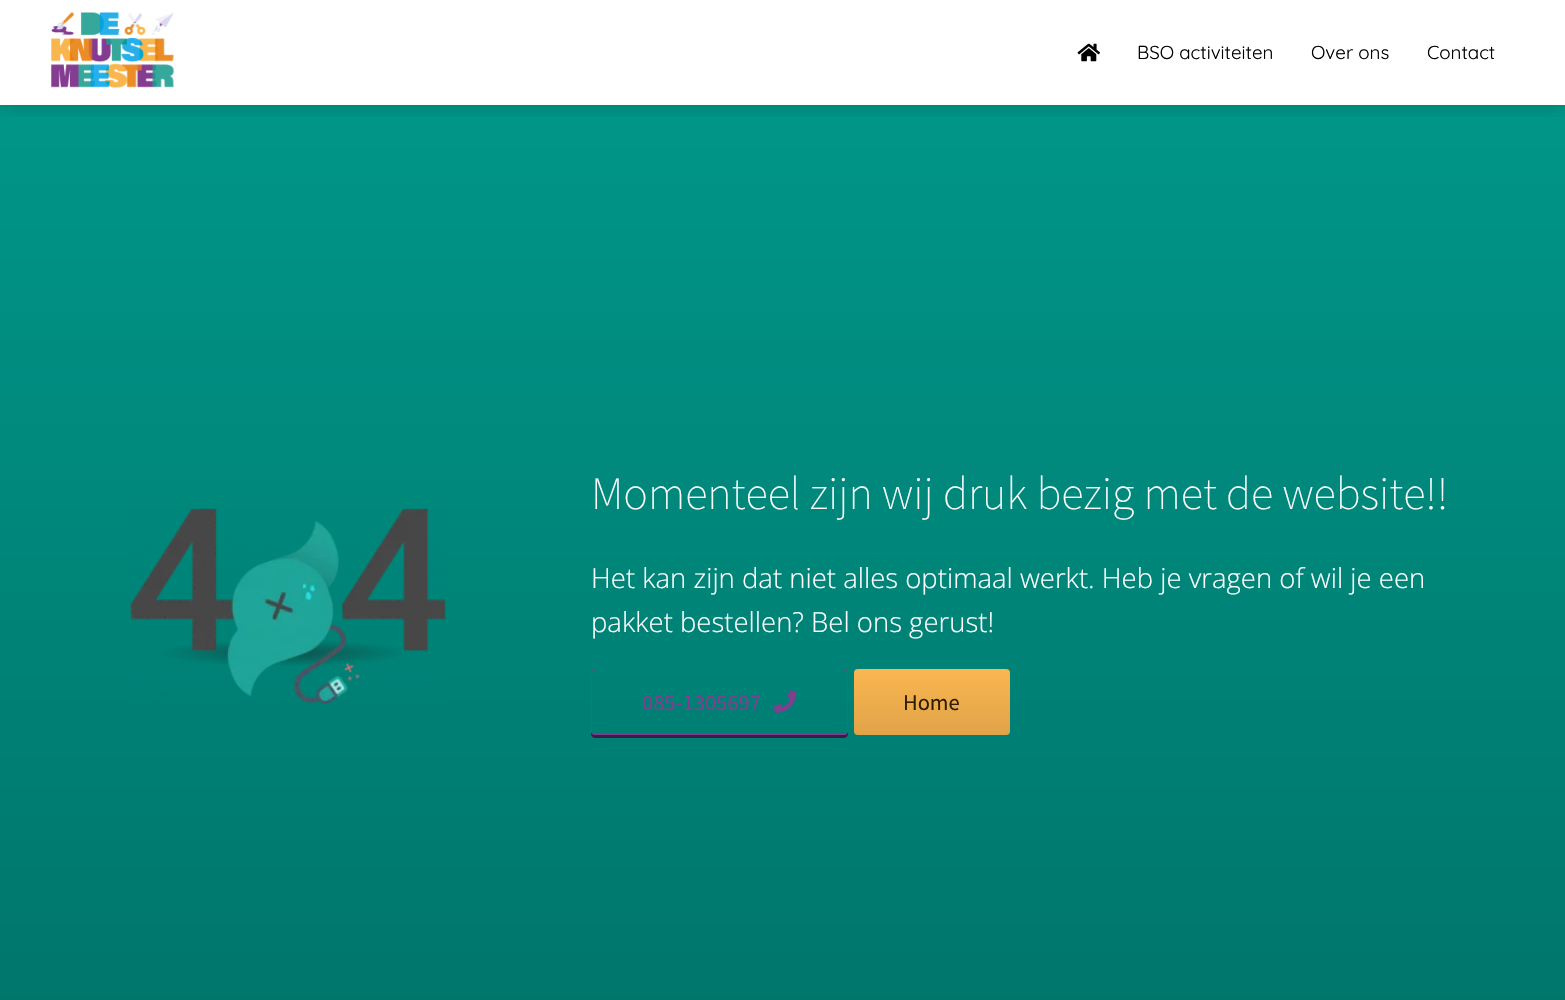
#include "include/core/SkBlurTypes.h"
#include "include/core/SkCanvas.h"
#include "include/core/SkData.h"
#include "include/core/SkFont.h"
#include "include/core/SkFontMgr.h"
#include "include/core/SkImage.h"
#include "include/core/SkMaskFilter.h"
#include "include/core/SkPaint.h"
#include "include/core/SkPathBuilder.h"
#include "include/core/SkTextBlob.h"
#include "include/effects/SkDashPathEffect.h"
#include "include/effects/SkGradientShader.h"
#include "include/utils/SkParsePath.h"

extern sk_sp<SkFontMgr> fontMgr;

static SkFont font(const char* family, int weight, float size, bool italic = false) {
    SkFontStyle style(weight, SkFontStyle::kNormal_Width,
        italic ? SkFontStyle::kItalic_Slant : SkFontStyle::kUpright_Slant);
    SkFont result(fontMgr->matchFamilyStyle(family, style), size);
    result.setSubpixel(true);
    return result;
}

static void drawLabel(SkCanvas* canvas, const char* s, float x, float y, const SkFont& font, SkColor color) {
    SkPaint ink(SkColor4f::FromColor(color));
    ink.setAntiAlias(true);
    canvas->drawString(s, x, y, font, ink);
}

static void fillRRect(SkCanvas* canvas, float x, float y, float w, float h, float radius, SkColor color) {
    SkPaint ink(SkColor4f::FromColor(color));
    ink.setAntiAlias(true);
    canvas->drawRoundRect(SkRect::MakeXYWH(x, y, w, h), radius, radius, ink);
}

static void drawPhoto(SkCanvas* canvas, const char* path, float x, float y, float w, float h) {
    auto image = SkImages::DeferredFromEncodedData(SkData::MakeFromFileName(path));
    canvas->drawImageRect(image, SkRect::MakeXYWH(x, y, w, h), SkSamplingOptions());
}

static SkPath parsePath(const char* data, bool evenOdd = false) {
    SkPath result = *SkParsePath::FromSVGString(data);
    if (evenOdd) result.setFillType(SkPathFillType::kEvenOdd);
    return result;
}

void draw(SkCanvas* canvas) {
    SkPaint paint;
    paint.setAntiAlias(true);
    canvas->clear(0xFFFFFFFF);
    {
        const SkColor colors[] = {0xFF009688, 0xFF007268};
        const float stops[] = {0, 1};
        const SkPoint ends[] = {{783, 105}, {783, 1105}};
        paint.setShader(SkGradientShader::MakeLinear(ends, colors, stops, 2, SkTileMode::kClamp));
        paint.setAlpha(255);
    }
    canvas->drawRect(SkRect::MakeXYWH(0, 105, 1565, 895), paint);
    canvas->save();
    canvas->clipRect(SkRect::MakeXYWH(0, 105, 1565, 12));
    paint.setShader(nullptr);
    paint.setColor(0x33000000);
    paint.setMaskFilter(SkMaskFilter::MakeBlur(kNormal_SkBlurStyle, 9.5f));
    canvas->drawRect(SkRect::MakeXYWH(0, 0, 1565, 105), paint);
    paint.setMaskFilter(nullptr);
    canvas->restore();
    drawPhoto(canvas, "assets/img1.png", 51, 12, 123, 76);
    drawPhoto(canvas, "assets/img2.png", 1077, 43, 23, 19);
    SkFont font1 = font("Quicksand", 400, 18.75f);
    drawLabel(canvas, "BSO activiteiten", 1137, 59, font1, 0xFF000000);
    drawLabel(canvas, "Over ons", 1311, 59, font1, 0xFF000000);
    drawLabel(canvas, "Contact", 1427, 59, font1, 0xFF000000);
    drawPhoto(canvas, "assets/img3.png", 130, 508, 316, 197);
    SkFont font2 = font("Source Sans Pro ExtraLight", 200, 46.25f);
    drawLabel(canvas, "Momenteel zijn wij druk bezig met de website!!", 591, 509, font2, 0xFFFFFFFF);
    SkFont font3 = font("Open Sans", 300, 27.5f);
    drawLabel(canvas, "Het kan zijn dat niet alles optimaal werkt. Heb je vragen of wil je een", 591, 588, font3, 0xFFFFFFFF);
    drawLabel(canvas, "pakket bestellen? Bel ons gerust!", 591, 632, font3, 0xFFFFFFFF);
    paint.setColor(0xFF3C1C42);
    canvas->drawPath(parsePath("M591 674V734C591 736 593 738 595 738H844C846 738 848 736 848 734V675V673V731C848 733 846 735 844 735H595C593 735 591 733 591 731Z"), paint);
    paint.setStroke(true);
    paint.setStrokeWidth(1);
    paint.setColor(0xFF833E90);
    canvas->drawRoundRect(SkRect::MakeXYWH(591.5f, 669.5f, 256, 65), 3.5f, 3.5f, paint);
    SkFont font4 = font("Source Sans Pro", 400, 22.5f);
    drawLabel(canvas, "085-1305697", 642, 710, font4, 0xFF833E90);
    drawPhoto(canvas, "assets/img4.png", 773, 690, 24, 23);
    fillRRect(canvas, 854, 669, 156, 66, 4, 0xFFFAB650);
    paint.setStroke(false);
    {
        const SkColor colors[] = {0x00000000, 0x1A000000};
        const float stops[] = {0, 1};
        const SkPoint ends[] = {{932, 669}, {932, 735}};
        paint.setShader(SkGradientShader::MakeLinear(ends, colors, stops, 2, SkTileMode::kClamp));
        paint.setAlpha(255);
    }
    canvas->drawRoundRect(SkRect::MakeXYWH(854, 669, 156, 66), 4, 4, paint);
    drawLabel(canvas, "Home", 903, 710, font4, 0xFF301D01);
}
